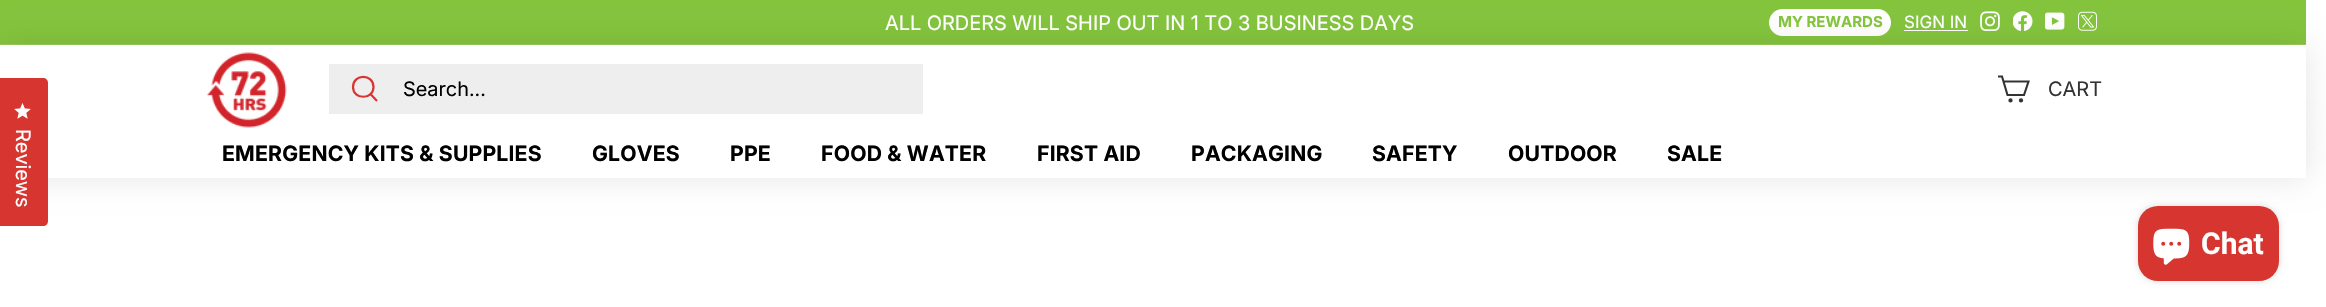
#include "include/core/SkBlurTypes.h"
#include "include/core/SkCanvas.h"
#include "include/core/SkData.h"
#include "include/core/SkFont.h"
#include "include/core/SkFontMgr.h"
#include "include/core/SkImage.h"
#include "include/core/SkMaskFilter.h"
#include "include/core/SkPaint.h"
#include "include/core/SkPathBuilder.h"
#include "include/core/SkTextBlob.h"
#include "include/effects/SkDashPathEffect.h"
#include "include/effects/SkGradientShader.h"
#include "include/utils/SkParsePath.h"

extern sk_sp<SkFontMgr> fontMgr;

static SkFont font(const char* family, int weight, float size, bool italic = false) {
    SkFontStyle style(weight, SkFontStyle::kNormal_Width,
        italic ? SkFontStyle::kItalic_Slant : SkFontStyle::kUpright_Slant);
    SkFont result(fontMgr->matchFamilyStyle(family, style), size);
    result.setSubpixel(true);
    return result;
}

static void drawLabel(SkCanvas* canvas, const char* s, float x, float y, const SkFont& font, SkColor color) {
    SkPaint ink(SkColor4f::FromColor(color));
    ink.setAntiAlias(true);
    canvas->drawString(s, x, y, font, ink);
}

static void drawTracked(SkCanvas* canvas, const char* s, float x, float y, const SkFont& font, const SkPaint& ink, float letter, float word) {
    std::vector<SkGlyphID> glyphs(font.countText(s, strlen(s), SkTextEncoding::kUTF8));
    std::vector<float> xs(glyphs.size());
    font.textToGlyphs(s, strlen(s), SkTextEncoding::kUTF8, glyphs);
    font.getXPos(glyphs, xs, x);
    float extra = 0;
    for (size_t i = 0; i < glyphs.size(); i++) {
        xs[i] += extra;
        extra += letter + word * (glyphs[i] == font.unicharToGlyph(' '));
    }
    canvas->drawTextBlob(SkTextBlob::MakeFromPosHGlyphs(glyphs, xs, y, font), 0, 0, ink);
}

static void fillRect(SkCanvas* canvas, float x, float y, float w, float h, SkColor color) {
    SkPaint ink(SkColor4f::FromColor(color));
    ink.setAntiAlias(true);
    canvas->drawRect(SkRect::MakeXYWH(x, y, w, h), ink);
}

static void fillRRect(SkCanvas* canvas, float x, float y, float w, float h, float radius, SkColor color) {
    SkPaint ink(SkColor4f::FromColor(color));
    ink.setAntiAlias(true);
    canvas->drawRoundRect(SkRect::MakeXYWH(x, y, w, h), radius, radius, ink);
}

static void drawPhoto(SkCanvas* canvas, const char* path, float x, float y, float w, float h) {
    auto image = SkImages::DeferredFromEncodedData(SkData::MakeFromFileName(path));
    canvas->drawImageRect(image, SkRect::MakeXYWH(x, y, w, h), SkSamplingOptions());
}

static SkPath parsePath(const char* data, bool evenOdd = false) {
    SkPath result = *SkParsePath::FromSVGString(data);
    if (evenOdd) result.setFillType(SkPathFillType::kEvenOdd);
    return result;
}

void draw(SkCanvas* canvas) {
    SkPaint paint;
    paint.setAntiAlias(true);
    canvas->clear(0xFFFFFFFF);
    fillRect(canvas, 0, 0, 2306, 44, 0xFF84C43D);
    fillRRect(canvas, 1769, 9, 122, 27, 13.5f, 0xFFFFFFFF);
    fillRect(canvas, 1904, 30, 64, 1, 0xFFFFFFFF);
    drawPhoto(canvas, "assets/img2.png", 1980, 11, 20, 20);
    drawPhoto(canvas, "assets/img3.png", 2013, 11, 20, 20);
    drawPhoto(canvas, "assets/img4.png", 2045, 12, 20, 18);
    drawPhoto(canvas, "assets/img5.png", 2078, 11, 19, 20);
    fillRect(canvas, 0, 44, 2306, 1, 0xFF96CD5A);
    paint.setColor(0x1A000000);
    paint.setMaskFilter(SkMaskFilter::MakeBlur(kNormal_SkBlurStyle, 15.5f));
    canvas->drawRect(SkRect::MakeXYWH(0, 45, 2306, 88), paint);
    paint.setMaskFilter(nullptr);
    paint.setMaskFilter(SkMaskFilter::MakeBlur(kNormal_SkBlurStyle, 15.5f));
    canvas->drawRect(SkRect::MakeXYWH(0, 133, 2306, 45), paint);
    paint.setMaskFilter(nullptr);
    fillRect(canvas, 0, 45, 2306, 88, 0xFFFFFFFF);
    paint.setColor(0xFFD73630);
    canvas->drawPath(parsePath("M-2 78H43C46 78 48 80 48 83V221C48 224 46 226 43 226H-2Z"), paint);
    drawPhoto(canvas, "assets/img1.png", 14, 103, 17, 16);
    SkFont font1 = font("Inter", 400, 20);
    canvas->save();
    canvas->rotate(90.1f, 16, 129);
    drawLabel(canvas, "Reviews", 16, 129, font1, 0xFFFFFFFF);
    canvas->restore();
    drawLabel(canvas, "ALL ORDERS WILL SHIP OUT IN 1 TO 3 BUSINESS DAYS", 885, 30, font1, 0xFFFFFFFF);
    SkFont font2 = font("Inter", 700, 15);
    drawLabel(canvas, "MY REWARDS", 1778, 27, font2, 0xFF84C43D);
    SkFont font3 = font("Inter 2", 400, 17);
    drawLabel(canvas, "SIGN IN", 1904, 28, font3, 0xFFFFFFFF);
    drawPhoto(canvas, "assets/img6.png", 207, 52, 80, 76);
    fillRect(canvas, 329, 64, 594, 50, 0xFFEEEEEF);
    paint.setStroke(true);
    paint.setStrokeWidth(2.2f);
    canvas->drawPath(parsePath("M373.5 87C373.5 100 353 100 353 87C353 73.5 373.5 73.5 373.5 87ZM377 101L370.5 94"), paint);
    drawLabel(canvas, "Search...", 403, 96, font1, 0xFF000000);
    paint.setStrokeWidth(2.1f);
    paint.setColor(0xFF333333);
    canvas->drawPath(parsePath("M2003.5 81.5H2028.5L2024 95H2007.5L2002 76.5H1998"), paint);
    canvas->drawCircle(2010.5f, 100.4f, 1.1f, paint);
    canvas->drawCircle(2021, 100.4f, 1.1f, paint);
    drawLabel(canvas, "CART", 2048, 96, font1, 0xFF333333);
    fillRect(canvas, 48, 133, 2258, 45, 0xFFFFFFFF);
    SkFont font4 = font("Inter 2", 700, 21.25f);
    paint.setStroke(false);
    paint.setColor(0xFF000000);
    drawTracked(canvas, "EMERGENCY KITS & SUPPLIES", 222, 161, font4, paint, 0.2f, 0);
    drawTracked(canvas, "GLOVES", 592, 161, font4, paint, 0.2f, 0);
    drawTracked(canvas, "PPE", 730, 161, font4, paint, 0.2f, 0);
    drawTracked(canvas, "FOOD & WATER", 821, 161, font4, paint, 0.2f, 0);
    drawTracked(canvas, "FIRST AID", 1037, 161, font4, paint, 0.2f, 0);
    drawTracked(canvas, "PACKAGING", 1191, 161, font4, paint, 0.2f, 0);
    drawTracked(canvas, "SAFETY", 1372, 161, font4, paint, 0.2f, 0);
    drawTracked(canvas, "OUTDOOR", 1508, 161, font4, paint, 0.2f, 0);
    drawTracked(canvas, "SALE", 1667, 161, font4, paint, 0.2f, 0);
    paint.setColor(0x26000000);
    paint.setMaskFilter(SkMaskFilter::MakeBlur(kNormal_SkBlurStyle, 3));
    canvas->drawRoundRect(SkRect::MakeXYWH(2138, 206, 141, 75), 20, 20, paint);
    paint.setMaskFilter(nullptr);
    fillRRect(canvas, 2138, 206, 141, 75, 20, 0xFFD73630);
    drawPhoto(canvas, "assets/img7.png", 2153, 228, 37, 37);
    SkFont font5 = font("Roboto", 700, 30);
    drawLabel(canvas, "Chat", 2201, 254, font5, 0xFFFFFFFF);
}
